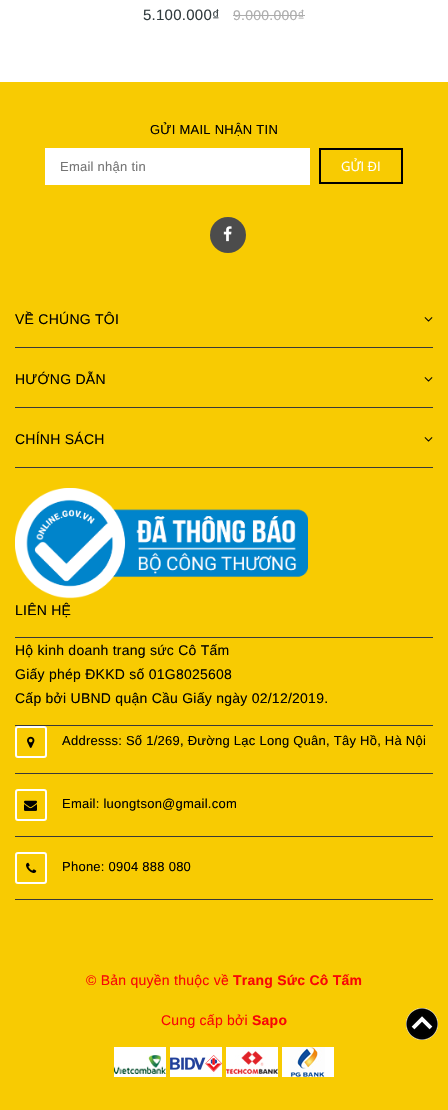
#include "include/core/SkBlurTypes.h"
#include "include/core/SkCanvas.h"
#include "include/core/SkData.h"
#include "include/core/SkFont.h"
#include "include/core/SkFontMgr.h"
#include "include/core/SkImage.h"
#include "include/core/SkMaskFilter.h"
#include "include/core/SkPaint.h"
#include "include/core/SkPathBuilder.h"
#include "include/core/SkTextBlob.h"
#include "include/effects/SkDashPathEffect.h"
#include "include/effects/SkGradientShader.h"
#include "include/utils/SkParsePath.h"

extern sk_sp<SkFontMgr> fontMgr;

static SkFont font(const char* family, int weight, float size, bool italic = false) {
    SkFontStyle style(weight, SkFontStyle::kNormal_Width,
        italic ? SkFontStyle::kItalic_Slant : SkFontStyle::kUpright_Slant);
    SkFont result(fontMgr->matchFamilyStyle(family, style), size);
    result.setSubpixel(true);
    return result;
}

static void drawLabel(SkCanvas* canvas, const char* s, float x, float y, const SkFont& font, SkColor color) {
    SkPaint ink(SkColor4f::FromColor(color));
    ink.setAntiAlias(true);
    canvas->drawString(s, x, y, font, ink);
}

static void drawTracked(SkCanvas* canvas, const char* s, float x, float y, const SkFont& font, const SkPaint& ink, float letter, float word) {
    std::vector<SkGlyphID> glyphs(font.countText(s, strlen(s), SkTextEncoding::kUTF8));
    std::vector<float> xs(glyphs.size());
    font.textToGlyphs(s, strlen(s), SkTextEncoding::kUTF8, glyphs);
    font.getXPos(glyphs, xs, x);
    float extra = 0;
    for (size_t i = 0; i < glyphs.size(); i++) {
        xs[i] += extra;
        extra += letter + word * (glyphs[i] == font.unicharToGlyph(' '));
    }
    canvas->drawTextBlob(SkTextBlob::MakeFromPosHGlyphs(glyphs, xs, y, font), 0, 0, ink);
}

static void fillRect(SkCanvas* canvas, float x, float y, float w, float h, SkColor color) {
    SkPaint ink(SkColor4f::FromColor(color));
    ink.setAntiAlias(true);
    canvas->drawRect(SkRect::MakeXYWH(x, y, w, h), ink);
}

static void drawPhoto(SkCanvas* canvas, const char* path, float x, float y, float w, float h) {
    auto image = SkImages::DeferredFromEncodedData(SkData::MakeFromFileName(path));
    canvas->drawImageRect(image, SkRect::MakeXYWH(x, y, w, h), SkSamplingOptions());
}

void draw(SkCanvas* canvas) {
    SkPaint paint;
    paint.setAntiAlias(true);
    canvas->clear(0xFFFFFFFF);
    SkFont font1 = font("Liberation Sans", 400, 15);
    paint.setColor(0xFF323C3F);
    drawTracked(canvas, "5.100.000₫", 143, 20, font1, paint, 0.25f, 0);
    SkFont font2 = font("Liberation Sans", 400, 14);
    paint.setColor(0xFFADADAD);
    drawTracked(canvas, "9.000.000₫", 233, 20, font2, paint, 0.25f, 0);
    fillRect(canvas, 233, 15, 72, 1, 0xFFADADAD);
    fillRect(canvas, 0, 82, 448, 1028, 0xFFF8CB02);
    SkFont font3 = font("Liberation Sans", 400, 13);
    paint.setColor(0xFF010101);
    drawTracked(canvas, "GỬI MAIL NHẬN TIN", 150, 134, font3, paint, 0.25f, 0);
    fillRect(canvas, 45, 148, 265, 37, 0xFFFFFFFF);
    paint.setColor(0xFF757575);
    drawTracked(canvas, "Email nhận tin", 60, 171, font3, paint, 0.25f, 0);
    paint.setStroke(true);
    paint.setStrokeWidth(2);
    paint.setColor(0xFF010101);
    canvas->drawRect(SkRect::MakeXYWH(320, 149, 82, 34), paint);
    SkFont font4 = font("Open Sans", 400, 13);
    drawLabel(canvas, "GỬI ĐI", 341, 171, font4, 0xFFFFFFFF);
    paint.setStroke(false);
    paint.setColor(0xFF4C4C4C);
    canvas->drawCircle(228, 235, 18, paint);
    drawPhoto(canvas, "assets/img1.png", 223, 226, 9, 16);
    fillRect(canvas, 15, 347, 418, 1, 0xFF393939);
    paint.setColor(0xFF010101);
    drawTracked(canvas, "VỀ CHÚNG TÔI", 15, 324, font2, paint, 0.25f, 0);
    drawPhoto(canvas, "assets/img2.png", 424, 317, 9, 5);
    fillRect(canvas, 15, 407, 418, 1, 0xFF393939);
    drawTracked(canvas, "HƯỚNG DẪN", 15, 384, font2, paint, 0.25f, 0);
    drawPhoto(canvas, "assets/img2.png", 424, 377, 9, 5);
    fillRect(canvas, 15, 467, 418, 1, 0xFF393939);
    drawTracked(canvas, "CHÍNH SÁCH", 15, 444, font2, paint, 0.25f, 0);
    drawPhoto(canvas, "assets/img2.png", 424, 437, 9, 5);
    drawPhoto(canvas, "assets/img3.png", 15, 488, 293, 111);
    fillRect(canvas, 15, 637, 418, 1, 0xFF393939);
    drawTracked(canvas, "LIÊN HỆ", 15, 615, font2, paint, 0.25f, 0);
    fillRect(canvas, 15, 725, 418, 1, 0xFF393939);
    drawTracked(canvas, "Hộ kinh doanh trang sức Cô Tấm", 15, 655, font2, paint, 0.25f, 0);
    drawTracked(canvas, "Giấy phép ĐKKD số 01G8025608", 15, 679, font2, paint, 0.25f, 0);
    drawTracked(canvas, "Cấp bởi UBND quận Cầu Giấy ngày 02/12/2019.", 15, 703, font2, paint, 0.25f, 0);
    fillRect(canvas, 15, 773, 418, 1, 0xFF393939);
    paint.setStroke(true);
    paint.setColor(0xFFFFFFFF);
    canvas->drawRoundRect(SkRect::MakeXYWH(16, 727, 30, 30), 2, 2, paint);
    drawPhoto(canvas, "assets/img4.png", 27, 736, 8, 12);
    paint.setStroke(false);
    paint.setColor(0xFF010101);
    drawTracked(canvas, "Addresss: Số 1/269, Đường Lạc Long Quân, Tây Hồ, Hà Nội", 62, 745, font3, paint, 0.25f, 0);
    fillRect(canvas, 15, 836, 418, 1, 0xFF393939);
    paint.setStroke(true);
    paint.setColor(0xFFFFFFFF);
    canvas->drawRoundRect(SkRect::MakeXYWH(16, 790, 30, 30), 2, 2, paint);
    drawPhoto(canvas, "assets/img5.png", 24, 800, 13, 11);
    paint.setStroke(false);
    paint.setColor(0xFF010101);
    drawTracked(canvas, "Email: luongtson@gmail.com", 62, 808, font3, paint, 0.25f, 0);
    fillRect(canvas, 15, 899, 418, 1, 0xFF393939);
    paint.setStroke(true);
    paint.setColor(0xFFFFFFFF);
    canvas->drawRoundRect(SkRect::MakeXYWH(16, 853, 30, 30), 2, 2, paint);
    drawPhoto(canvas, "assets/img6.png", 26, 862, 11, 11);
    paint.setStroke(false);
    paint.setColor(0xFF010101);
    drawTracked(canvas, "Phone: 0904 888 080", 62, 871, font3, paint, 0.25f, 0);
    paint.setColor(0xFFF80606);
    drawTracked(canvas, "© Bản quyền thuộc về", 86, 985, font2, paint, 0.25f, 0);
    SkFont font5 = font("Liberation Sans", 700, 14);
    drawTracked(canvas, "Trang Sức Cô Tấm", 233, 985, font5, paint, 0.25f, 0);
    drawTracked(canvas, "Cung cấp bởi", 161, 1025, font2, paint, 0.25f, 0);
    drawTracked(canvas, "Sapo", 252, 1025, font5, paint, 0.25f, 0);
    drawPhoto(canvas, "assets/img7.png", 114, 1047, 52, 30);
    drawPhoto(canvas, "assets/img8.png", 170, 1047, 52, 30);
    drawPhoto(canvas, "assets/img9.png", 226, 1047, 52, 30);
    drawPhoto(canvas, "assets/img10.png", 282, 1047, 52, 30);
    drawPhoto(canvas, "assets/img11.png", 406, 1008, 32, 32);
}
